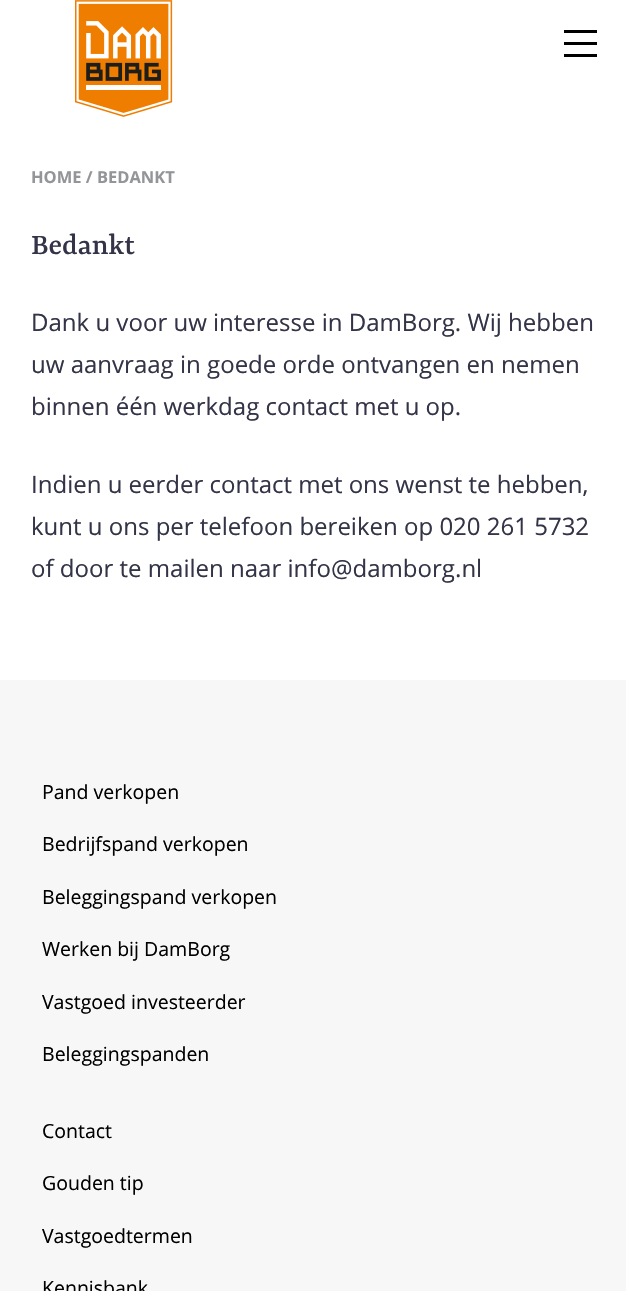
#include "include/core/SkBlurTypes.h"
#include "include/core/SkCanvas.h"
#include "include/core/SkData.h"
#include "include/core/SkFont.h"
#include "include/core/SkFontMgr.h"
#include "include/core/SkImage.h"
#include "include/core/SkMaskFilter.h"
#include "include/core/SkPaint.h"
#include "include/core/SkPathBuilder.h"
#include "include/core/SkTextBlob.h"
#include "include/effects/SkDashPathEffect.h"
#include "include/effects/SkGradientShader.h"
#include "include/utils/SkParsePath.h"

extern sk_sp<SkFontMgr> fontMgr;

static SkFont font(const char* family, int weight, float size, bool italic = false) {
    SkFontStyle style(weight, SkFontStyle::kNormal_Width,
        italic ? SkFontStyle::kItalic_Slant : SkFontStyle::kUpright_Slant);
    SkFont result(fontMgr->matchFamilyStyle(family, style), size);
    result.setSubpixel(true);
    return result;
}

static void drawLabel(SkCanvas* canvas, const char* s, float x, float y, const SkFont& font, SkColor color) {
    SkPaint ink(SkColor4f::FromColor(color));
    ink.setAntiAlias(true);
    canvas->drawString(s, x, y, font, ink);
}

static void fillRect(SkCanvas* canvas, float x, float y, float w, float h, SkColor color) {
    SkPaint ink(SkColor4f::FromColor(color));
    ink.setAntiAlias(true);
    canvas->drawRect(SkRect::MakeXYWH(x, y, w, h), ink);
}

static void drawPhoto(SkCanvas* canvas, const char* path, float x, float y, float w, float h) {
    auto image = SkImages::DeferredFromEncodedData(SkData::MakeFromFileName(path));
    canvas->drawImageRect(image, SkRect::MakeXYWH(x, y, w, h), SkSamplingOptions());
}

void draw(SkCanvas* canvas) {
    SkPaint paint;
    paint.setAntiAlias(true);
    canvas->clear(0xFFFFFFFF);
    drawPhoto(canvas, "assets/img1.png", 75, 0, 98, 117);
    fillRect(canvas, 564, 30, 33, 3, 0xFF000000);
    fillRect(canvas, 564, 42, 33, 3, 0xFF000000);
    fillRect(canvas, 564, 54, 33, 3, 0xFF000000);
    SkFont font1 = font("Open Sans", 700, 16.5f);
    drawLabel(canvas, "HOME / BEDANKT", 31, 183, font1, 0xFF939598);
    SkFont font2 = font("Yrsa", 500, 31.5f);
    drawLabel(canvas, "Bedankt", 31, 254, font2, 0xFF333447);
    SkFont font3 = font("Open Sans", 400, 24);
    drawLabel(canvas, "Dank u voor uw interesse in DamBorg. Wij hebben", 31, 331, font3, 0xFF333447);
    drawLabel(canvas, "uw aanvraag in goede orde ontvangen en nemen", 31, 373, font3, 0xFF333447);
    drawLabel(canvas, "binnen één werkdag contact met u op.", 31, 415, font3, 0xFF333447);
    drawLabel(canvas, "Indien u eerder contact met ons wenst te hebben,", 31, 493, font3, 0xFF333447);
    drawLabel(canvas, "kunt u ons per telefoon bereiken op 020 261 5732", 31, 535, font3, 0xFF333447);
    drawLabel(canvas, "of door te mailen naar info@damborg.nl", 31, 577, font3, 0xFF333447);
    fillRect(canvas, 0, 680, 626, 611, 0xFFF7F7F7);
    SkFont font4 = font("Open Sans", 400, 19.5f);
    drawLabel(canvas, "Pand verkopen", 42, 799, font4, 0xFF000000);
    drawLabel(canvas, "Bedrijfspand verkopen", 42, 851, font4, 0xFF000000);
    drawLabel(canvas, "Beleggingspand verkopen", 42, 904, font4, 0xFF000000);
    drawLabel(canvas, "Werken bij DamBorg", 42, 956, font4, 0xFF000000);
    drawLabel(canvas, "Vastgoed investeerder", 42, 1009, font4, 0xFF000000);
    drawLabel(canvas, "Beleggingspanden", 42, 1061, font4, 0xFF000000);
    drawLabel(canvas, "Contact", 42, 1138, font4, 0xFF000000);
    drawLabel(canvas, "Gouden tip", 42, 1190, font4, 0xFF000000);
    drawLabel(canvas, "Vastgoedtermen", 42, 1243, font4, 0xFF000000);
    drawLabel(canvas, "Kennisbank", 42, 1295, font4, 0xFF000000);
}
